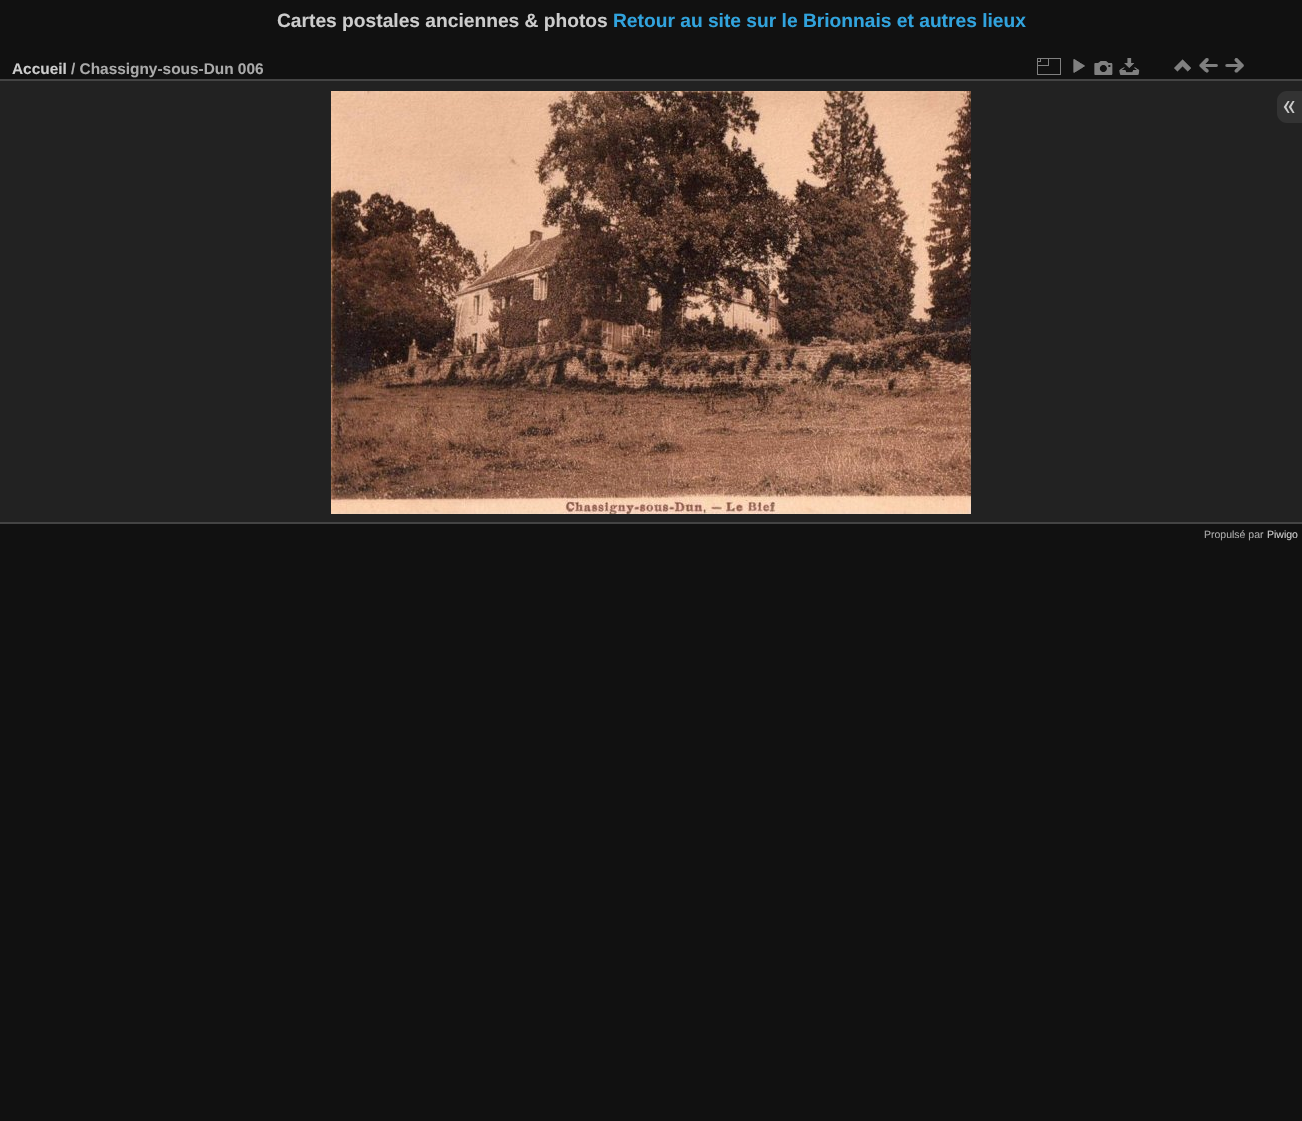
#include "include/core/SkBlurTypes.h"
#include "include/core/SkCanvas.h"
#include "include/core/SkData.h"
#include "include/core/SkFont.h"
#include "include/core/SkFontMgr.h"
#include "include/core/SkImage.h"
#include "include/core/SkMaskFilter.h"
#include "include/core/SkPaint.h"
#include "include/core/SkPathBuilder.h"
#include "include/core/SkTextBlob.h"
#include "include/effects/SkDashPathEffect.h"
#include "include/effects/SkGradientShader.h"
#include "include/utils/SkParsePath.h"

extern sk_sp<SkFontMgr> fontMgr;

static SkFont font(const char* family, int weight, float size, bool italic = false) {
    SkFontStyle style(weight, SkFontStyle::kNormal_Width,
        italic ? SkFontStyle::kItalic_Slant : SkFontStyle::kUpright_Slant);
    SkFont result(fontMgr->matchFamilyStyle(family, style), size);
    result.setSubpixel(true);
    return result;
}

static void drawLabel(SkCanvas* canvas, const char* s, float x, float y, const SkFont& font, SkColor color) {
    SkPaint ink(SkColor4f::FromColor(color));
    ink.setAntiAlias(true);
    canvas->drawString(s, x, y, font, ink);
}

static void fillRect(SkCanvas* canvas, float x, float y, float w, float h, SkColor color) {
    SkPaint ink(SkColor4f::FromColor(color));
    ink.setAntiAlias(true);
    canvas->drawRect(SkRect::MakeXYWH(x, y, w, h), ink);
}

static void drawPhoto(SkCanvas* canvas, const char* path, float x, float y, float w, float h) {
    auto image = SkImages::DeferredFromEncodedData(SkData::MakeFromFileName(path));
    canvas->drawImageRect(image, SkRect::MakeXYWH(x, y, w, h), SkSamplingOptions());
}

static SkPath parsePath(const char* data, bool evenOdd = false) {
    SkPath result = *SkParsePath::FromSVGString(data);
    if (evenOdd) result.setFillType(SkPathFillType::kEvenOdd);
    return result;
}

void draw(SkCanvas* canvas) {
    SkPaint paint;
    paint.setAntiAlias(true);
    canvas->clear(0xFF111111);
    SkFont font1 = font("Liberation Sans", 700, 19.2f);
    drawLabel(canvas, "Cartes postales anciennes & photos", 277, 27, font1, 0xFFCCCCCC);
    drawLabel(canvas, "Retour au site sur le Brionnais et autres lieux", 613, 27, font1, 0xFF31A3DD);
    fillRect(canvas, 0, 81, 1302, 441, 0xFF222222);
    fillRect(canvas, 0, 522, 1302, 2, 0xFF444444);
    fillRect(canvas, 0, 79, 1302, 2, 0xFF444444);
    SkFont font2 = font("Liberation Sans", 700, 15.4f);
    drawLabel(canvas, "Accueil", 12, 74, font2, 0xFFCCCCCC);
    drawLabel(canvas, "/ Chassigny-sous-Dun 006", 71, 74, font2, 0xFFAAAAAA);
    drawPhoto(canvas, "assets/img1.png", 1037, 58, 24, 17);
    drawPhoto(canvas, "assets/img2.png", 1073, 59, 12, 14);
    drawPhoto(canvas, "assets/img3.png", 1094, 61, 19, 14);
    drawPhoto(canvas, "assets/img4.png", 1119, 58, 21, 17);
    drawPhoto(canvas, "assets/img5.png", 1174, 59, 17, 13);
    drawPhoto(canvas, "assets/img6.png", 1199, 58, 19, 15);
    drawPhoto(canvas, "assets/img7.png", 1225, 58, 19, 15);
    drawPhoto(canvas, "assets/img8.png", 331, 91, 640, 423);
    paint.setColor(0xFF333333);
    canvas->drawPath(parsePath("M1287 91H1302V123H1287C1281.5 123 1277 118.5 1277 113V101C1277 95.5 1281.5 91 1287 91Z"), paint);
    drawPhoto(canvas, "assets/img9.png", 1283, 101, 12, 12);
    SkFont font3 = font("Liberation Sans", 400, 10.5f);
    drawLabel(canvas, "Propulsé par", 1204, 538, font3, 0xFFAAAAAA);
    drawLabel(canvas, "Piwigo", 1267, 538, font3, 0xFFCCCCCC);
}
